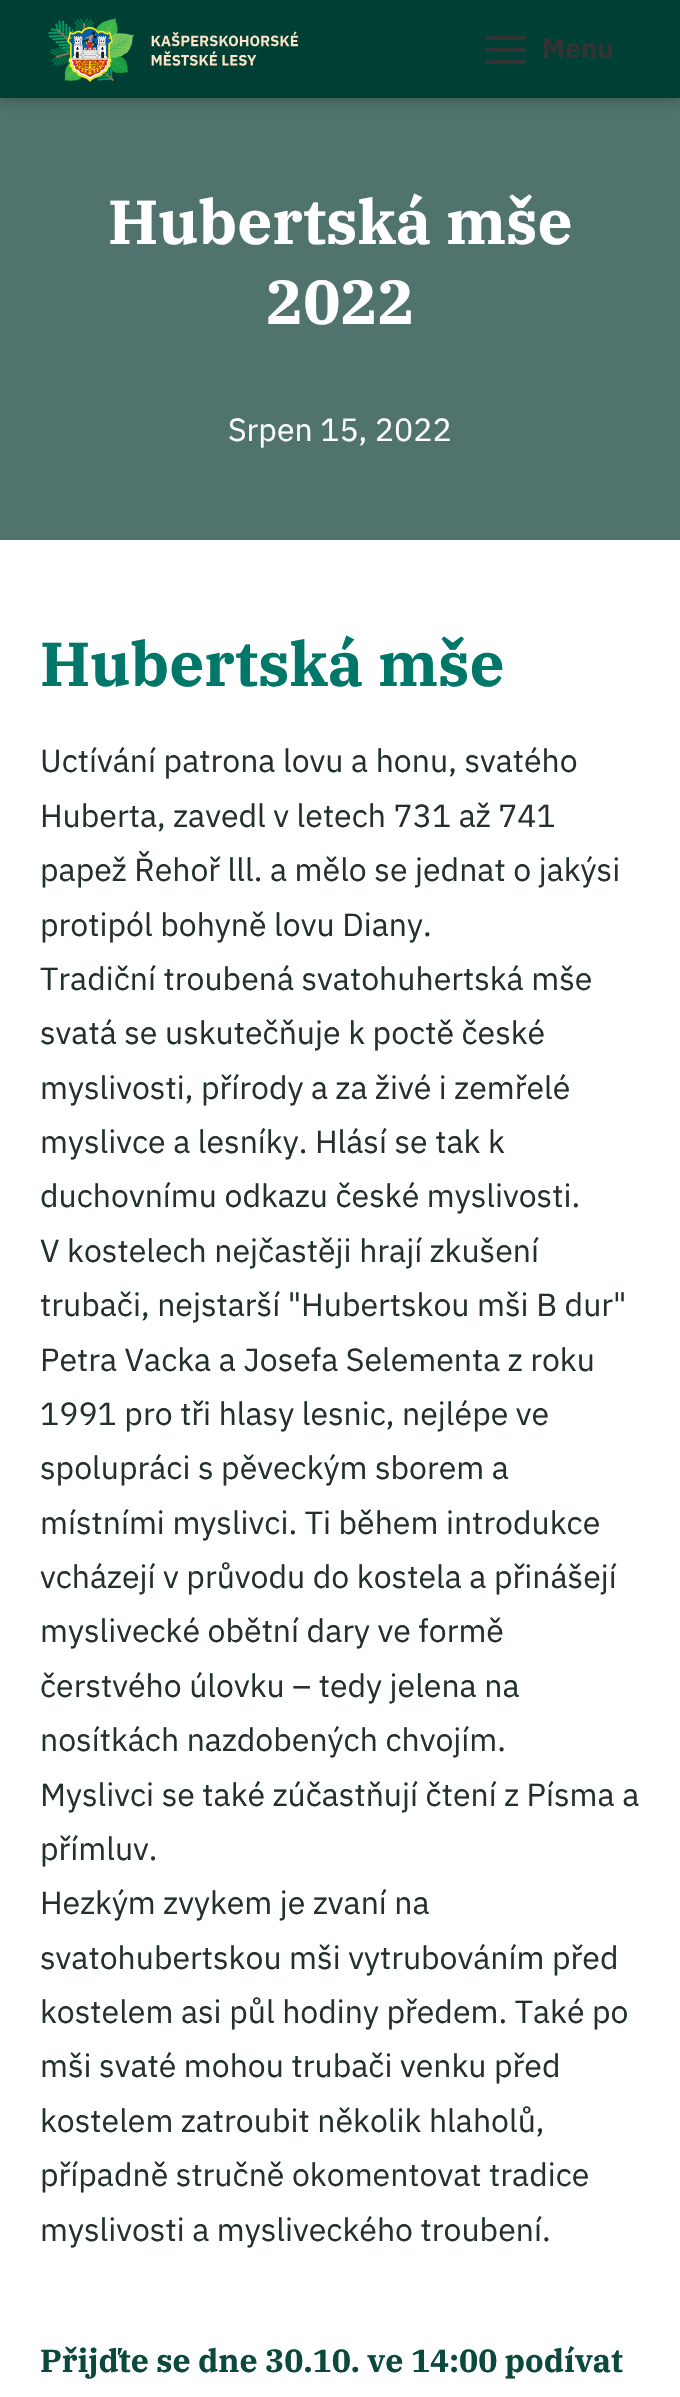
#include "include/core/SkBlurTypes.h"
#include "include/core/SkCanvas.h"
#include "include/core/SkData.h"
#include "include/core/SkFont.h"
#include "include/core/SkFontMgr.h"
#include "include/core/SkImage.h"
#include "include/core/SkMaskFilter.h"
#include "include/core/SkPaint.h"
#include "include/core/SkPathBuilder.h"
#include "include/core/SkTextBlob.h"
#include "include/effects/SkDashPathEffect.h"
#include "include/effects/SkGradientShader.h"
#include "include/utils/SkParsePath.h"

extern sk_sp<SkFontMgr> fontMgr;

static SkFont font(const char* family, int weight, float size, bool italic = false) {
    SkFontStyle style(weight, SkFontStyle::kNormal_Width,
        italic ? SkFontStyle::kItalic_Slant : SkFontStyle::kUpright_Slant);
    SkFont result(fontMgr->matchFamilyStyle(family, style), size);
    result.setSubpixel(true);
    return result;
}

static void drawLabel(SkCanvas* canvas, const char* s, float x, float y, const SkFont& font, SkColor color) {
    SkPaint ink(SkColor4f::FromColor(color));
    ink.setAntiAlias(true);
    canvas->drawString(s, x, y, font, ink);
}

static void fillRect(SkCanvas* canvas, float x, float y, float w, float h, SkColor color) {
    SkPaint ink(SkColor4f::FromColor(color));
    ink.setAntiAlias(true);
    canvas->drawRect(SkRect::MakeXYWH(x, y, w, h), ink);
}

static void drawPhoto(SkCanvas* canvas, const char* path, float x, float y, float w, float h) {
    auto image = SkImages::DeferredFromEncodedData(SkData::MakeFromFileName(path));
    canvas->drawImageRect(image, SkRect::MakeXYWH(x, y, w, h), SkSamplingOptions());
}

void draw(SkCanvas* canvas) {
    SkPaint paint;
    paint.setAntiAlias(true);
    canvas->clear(0xFFFFFFFF);
    fillRect(canvas, 0, 98, 680, 442, 0xFF50736D);
    paint.setColor(0x4D000000);
    paint.setMaskFilter(SkMaskFilter::MakeBlur(kNormal_SkBlurStyle, 8));
    canvas->drawRect(SkRect::MakeXYWH(0, 0, 680, 98), paint);
    paint.setMaskFilter(nullptr);
    fillRect(canvas, 0, 0, 680, 98, 0xFF004034);
    drawPhoto(canvas, "assets/img1.png", 48, 18, 250, 64);
    fillRect(canvas, 486, 36, 40, 4, 0xFF333333);
    fillRect(canvas, 486, 48, 40, 4, 0xFF333333);
    fillRect(canvas, 486, 60, 40, 4, 0xFF333333);
    SkFont font1 = font("IBM Plex Sans", 700, 28);
    drawLabel(canvas, "Menu", 542, 58, font1, 0xFF333333);
    SkFont font2 = font("IBM Plex Serif", 700, 62);
    drawLabel(canvas, "Hubertská mše", 108, 244, font2, 0xFFFFFFFF);
    drawLabel(canvas, "2022", 266, 324, font2, 0xFFFFFFFF);
    SkFont font3 = font("IBM Plex Sans", 400, 32);
    drawLabel(canvas, "Srpen 15, 2022", 228, 441, font3, 0xFFFFFFFF);
    drawLabel(canvas, "Hubertská mše", 40, 686, font2, 0xFF007769);
    drawLabel(canvas, "Uctívání patrona lovu a honu, svatého", 40, 772, font3, 0xFF23302E);
    drawLabel(canvas, "Huberta, zavedl v letech 731 až 741", 40, 827, font3, 0xFF23302E);
    drawLabel(canvas, "papež Řehoř lll. a mělo se jednat o jakýsi", 40, 881, font3, 0xFF23302E);
    drawLabel(canvas, "protipól bohyně lovu Diany.", 40, 936, font3, 0xFF23302E);
    drawLabel(canvas, "Tradiční troubená svatohuhertská mše", 40, 990, font3, 0xFF23302E);
    drawLabel(canvas, "svatá se uskutečňuje k poctě české", 40, 1044, font3, 0xFF23302E);
    drawLabel(canvas, "myslivosti, přírody a za živé i zemřelé", 40, 1099, font3, 0xFF23302E);
    drawLabel(canvas, "myslivce a lesníky. Hlásí se tak k", 40, 1153, font3, 0xFF23302E);
    drawLabel(canvas, "duchovnímu odkazu české myslivosti.", 40, 1207, font3, 0xFF23302E);
    drawLabel(canvas, "V kostelech nejčastěji hrají zkušení", 40, 1262, font3, 0xFF23302E);
    drawLabel(canvas, "trubači, nejstarší \"Hubertskou mši B dur\"", 40, 1316, font3, 0xFF23302E);
    drawLabel(canvas, "Petra Vacka a Josefa Selementa z roku", 40, 1371, font3, 0xFF23302E);
    drawLabel(canvas, "1991 pro tři hlasy lesnic, nejlépe ve", 40, 1425, font3, 0xFF23302E);
    drawLabel(canvas, "spolupráci s pěveckým sborem a", 40, 1479, font3, 0xFF23302E);
    drawLabel(canvas, "místními myslivci. Ti během introdukce", 40, 1534, font3, 0xFF23302E);
    drawLabel(canvas, "vcházejí v průvodu do kostela a přinášejí", 40, 1588, font3, 0xFF23302E);
    drawLabel(canvas, "myslivecké obětní dary ve formě", 40, 1642, font3, 0xFF23302E);
    drawLabel(canvas, "čerstvého úlovku – tedy jelena na", 40, 1697, font3, 0xFF23302E);
    drawLabel(canvas, "nosítkách nazdobených chvojím.", 40, 1751, font3, 0xFF23302E);
    drawLabel(canvas, "Myslivci se také zúčastňují čtení z Písma a", 40, 1806, font3, 0xFF23302E);
    drawLabel(canvas, "přímluv.", 40, 1860, font3, 0xFF23302E);
    drawLabel(canvas, "Hezkým zvykem je zvaní na", 40, 1914, font3, 0xFF23302E);
    drawLabel(canvas, "svatohubertskou mši vytrubováním před", 40, 1969, font3, 0xFF23302E);
    drawLabel(canvas, "kostelem asi půl hodiny předem. Také po", 40, 2023, font3, 0xFF23302E);
    drawLabel(canvas, "mši svaté mohou trubači venku před", 40, 2077, font3, 0xFF23302E);
    drawLabel(canvas, "kostelem zatroubit několik hlaholů,", 40, 2132, font3, 0xFF23302E);
    drawLabel(canvas, "případně stručně okomentovat tradice", 40, 2186, font3, 0xFF23302E);
    drawLabel(canvas, "myslivosti a mysliveckého troubení.", 40, 2241, font3, 0xFF23302E);
    SkFont font4 = font("IBM Plex Serif", 700, 32);
    drawLabel(canvas, "Přijďte se dne 30.10. ve 14:00 podívat", 40, 2372, font4, 0xFF0B483D);
}
